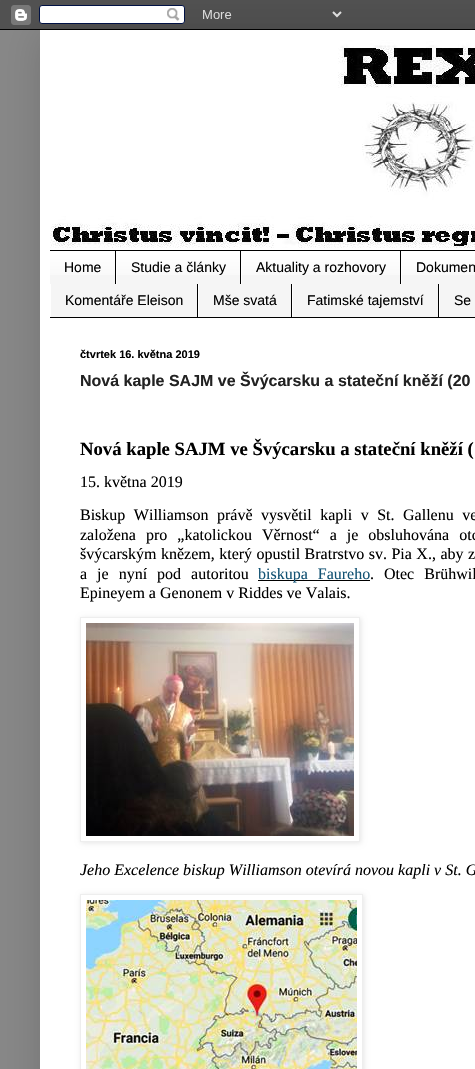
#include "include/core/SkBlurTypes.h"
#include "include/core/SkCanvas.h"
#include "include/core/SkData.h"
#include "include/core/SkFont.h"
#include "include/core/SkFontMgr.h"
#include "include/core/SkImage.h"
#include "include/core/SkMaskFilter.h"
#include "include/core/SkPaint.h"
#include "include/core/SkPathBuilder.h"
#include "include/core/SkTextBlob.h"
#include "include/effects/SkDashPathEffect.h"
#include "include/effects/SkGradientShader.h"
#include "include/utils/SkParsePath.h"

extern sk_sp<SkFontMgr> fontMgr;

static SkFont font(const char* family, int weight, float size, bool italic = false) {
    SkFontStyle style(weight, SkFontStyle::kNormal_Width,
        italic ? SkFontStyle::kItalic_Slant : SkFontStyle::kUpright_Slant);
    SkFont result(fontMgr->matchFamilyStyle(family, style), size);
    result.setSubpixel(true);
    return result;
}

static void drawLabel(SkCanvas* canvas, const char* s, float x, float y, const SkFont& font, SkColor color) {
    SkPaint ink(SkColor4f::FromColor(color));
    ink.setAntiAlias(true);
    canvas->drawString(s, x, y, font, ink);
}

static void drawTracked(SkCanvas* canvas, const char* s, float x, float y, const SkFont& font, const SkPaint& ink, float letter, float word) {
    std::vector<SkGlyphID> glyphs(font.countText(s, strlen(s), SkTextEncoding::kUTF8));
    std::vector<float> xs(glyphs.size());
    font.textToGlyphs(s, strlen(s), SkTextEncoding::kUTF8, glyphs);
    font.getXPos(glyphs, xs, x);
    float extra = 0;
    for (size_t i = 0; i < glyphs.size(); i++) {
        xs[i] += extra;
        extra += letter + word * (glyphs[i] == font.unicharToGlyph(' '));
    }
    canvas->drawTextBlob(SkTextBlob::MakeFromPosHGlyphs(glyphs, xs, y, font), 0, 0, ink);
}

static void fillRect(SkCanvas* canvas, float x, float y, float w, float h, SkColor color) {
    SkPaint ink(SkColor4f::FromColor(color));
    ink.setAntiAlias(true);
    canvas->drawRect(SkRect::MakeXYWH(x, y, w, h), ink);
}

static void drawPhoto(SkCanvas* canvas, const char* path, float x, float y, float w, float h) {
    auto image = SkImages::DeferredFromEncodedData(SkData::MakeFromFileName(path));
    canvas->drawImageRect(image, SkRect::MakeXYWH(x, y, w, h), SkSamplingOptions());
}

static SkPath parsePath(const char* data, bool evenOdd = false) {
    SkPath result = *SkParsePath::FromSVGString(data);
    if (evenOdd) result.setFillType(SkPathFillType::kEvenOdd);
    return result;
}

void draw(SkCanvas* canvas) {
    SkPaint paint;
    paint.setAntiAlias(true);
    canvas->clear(0xFF888888);
    paint.setColor(0x26000000);
    paint.setMaskFilter(SkMaskFilter::MakeBlur(kNormal_SkBlurStyle, 20));
    canvas->drawRect(SkRect::MakeXYWH(40, 30, 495, 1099), paint);
    paint.setMaskFilter(nullptr);
    drawPhoto(canvas, "assets/img1.png", 0, 0, 475, 30);
    fillRect(canvas, 40, 30, 435, 1039, 0xFFFFFFFF);
    drawPhoto(canvas, "assets/img2.png", 50, 40, 425, 210);
    fillRect(canvas, 50, 252, 425, 65, 0xFFF5F5F5);
    drawPhoto(canvas, "assets/img3.png", 50, 251, 425, 24);
    fillRect(canvas, 50, 250, 425, 1, 0xFF000000);
    fillRect(canvas, 50, 317, 425, 1, 0xFF000000);
    fillRect(canvas, 115, 251, 1, 33, 0xFF000000);
    SkFont font1 = font("Liberation Sans", 400, 14);
    drawLabel(canvas, "Home", 64, 272, font1, 0xFF000000);
    fillRect(canvas, 240, 251, 1, 33, 0xFF000000);
    fillRect(canvas, 116, 262, 1, 22, 0xFFFFFFFF);
    drawLabel(canvas, "Studie a články", 131, 272, font1, 0xFF000000);
    fillRect(canvas, 400, 251, 1, 33, 0xFF000000);
    fillRect(canvas, 241, 262, 1, 22, 0xFFFFFFFF);
    drawLabel(canvas, "Aktuality a rozhovory", 256, 272, font1, 0xFF000000);
    fillRect(canvas, 401, 262, 1, 22, 0xFFFFFFFF);
    drawLabel(canvas, "Dokumen", 416, 272, font1, 0xFF000000);
    fillRect(canvas, 197, 284, 1, 33, 0xFF000000);
    fillRect(canvas, 50, 284, 1, 33, 0xFFFFFFFF);
    drawLabel(canvas, "Komentáře Eleison", 65, 305, font1, 0xFF000000);
    fillRect(canvas, 291, 284, 1, 33, 0xFF000000);
    fillRect(canvas, 198, 284, 1, 33, 0xFFFFFFFF);
    drawLabel(canvas, "Mše svatá", 213, 305, font1, 0xFF000000);
    fillRect(canvas, 438, 284, 1, 33, 0xFF000000);
    fillRect(canvas, 292, 284, 1, 33, 0xFFFFFFFF);
    drawLabel(canvas, "Fatimské tajemství", 307, 305, font1, 0xFF000000);
    fillRect(canvas, 439, 284, 1, 33, 0xFFFFFFFF);
    drawLabel(canvas, "Se", 454, 305, font1, 0xFF000000);
    SkFont font2 = font("Liberation Sans", 700, 11);
    drawLabel(canvas, "čtvrtek 16. května 2019", 80, 358, font2, 0xFF000000);
    SkFont font3 = font("Liberation Sans", 700, 16);
    drawLabel(canvas, "Nová kaple SAJM ve Švýcarsku a stateční kněží (20", 80, 386, font3, 0xFF222222);
    SkFont font4 = font("Liberation Serif", 700, 18.7f);
    drawLabel(canvas, "Nová kaple SAJM ve Švýcarsku a stateční kněží (", 80, 455, font4, 0xFF000000);
    SkFont font5 = font("Liberation Serif", 400, 16);
    drawLabel(canvas, "15. května 2019", 80, 487, font5, 0xFF000000);
    paint.setColor(0xFF000000);
    drawTracked(canvas, "Biskup Williamson právě vysvětil kapli v St. Gallenu ve", 80, 520, font5, paint, 0, 4.5f);
    drawTracked(canvas, "založena pro „katolickou Věrnost“ a je obsluhována otc", 80, 540, font5, paint, 0, 6);
    drawTracked(canvas, "švýcarským knězem, který opustil Bratrstvo sv. Pia X., aby z", 80, 559, font5, paint, 0, 0.5f);
    drawTracked(canvas, "a je nyní pod autoritou", 80, 579, font5, paint, 0, 6);
    fillRect(canvas, 258, 580, 112, 1, 0xFF000000);
    paint.setColor(0xFF135374);
    drawTracked(canvas, "biskupa Faureho", 258, 579, font5, paint, 0, 6);
    paint.setColor(0xFF000000);
    drawTracked(canvas, ". Otec Brühwil", 370, 579, font5, paint, 0, 6);
    drawLabel(canvas, "Epineyem a Genonem v Riddes ve Valais.", 80, 598, font5, 0xFF000000);
    canvas->save();
    canvas->clipPath(parsePath("M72 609H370V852H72ZM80 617H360V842H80Z", true), true);
    paint.setColor(0x1A000000);
    paint.setMaskFilter(SkMaskFilter::MakeBlur(kNormal_SkBlurStyle, 2.5f));
    canvas->drawRect(SkRect::MakeXYWH(81, 618, 280, 225), paint);
    paint.setMaskFilter(nullptr);
    canvas->restore();
    paint.setStroke(true);
    paint.setStrokeWidth(1);
    paint.setColor(0xFFEEEEEE);
    canvas->drawRect(SkRect::MakeXYWH(80.5f, 617.5f, 279, 224), paint);
    drawPhoto(canvas, "assets/img4.png", 86, 623, 268, 213);
    SkFont font6 = font("Liberation Serif", 400, 16, true);
    drawLabel(canvas, "Jeho Excelence biskup Williamson otevírá novou kapli v St. G", 80, 875, font6, 0xFF000000);
    canvas->save();
    canvas->clipPath(parsePath("M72 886H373V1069H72ZM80 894H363V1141H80Z", true), true);
    paint.setStroke(false);
    paint.setColor(0x1A000000);
    paint.setMaskFilter(SkMaskFilter::MakeBlur(kNormal_SkBlurStyle, 2.5f));
    canvas->drawRect(SkRect::MakeXYWH(81, 895, 283, 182), paint);
    paint.setMaskFilter(nullptr);
    canvas->restore();
    paint.setStroke(true);
    paint.setColor(0xFFEEEEEE);
    canvas->drawRect(SkRect::MakeXYWH(80.5f, 894.5f, 282, 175), paint);
    drawPhoto(canvas, "assets/img5.png", 86, 900, 271, 169);
}
